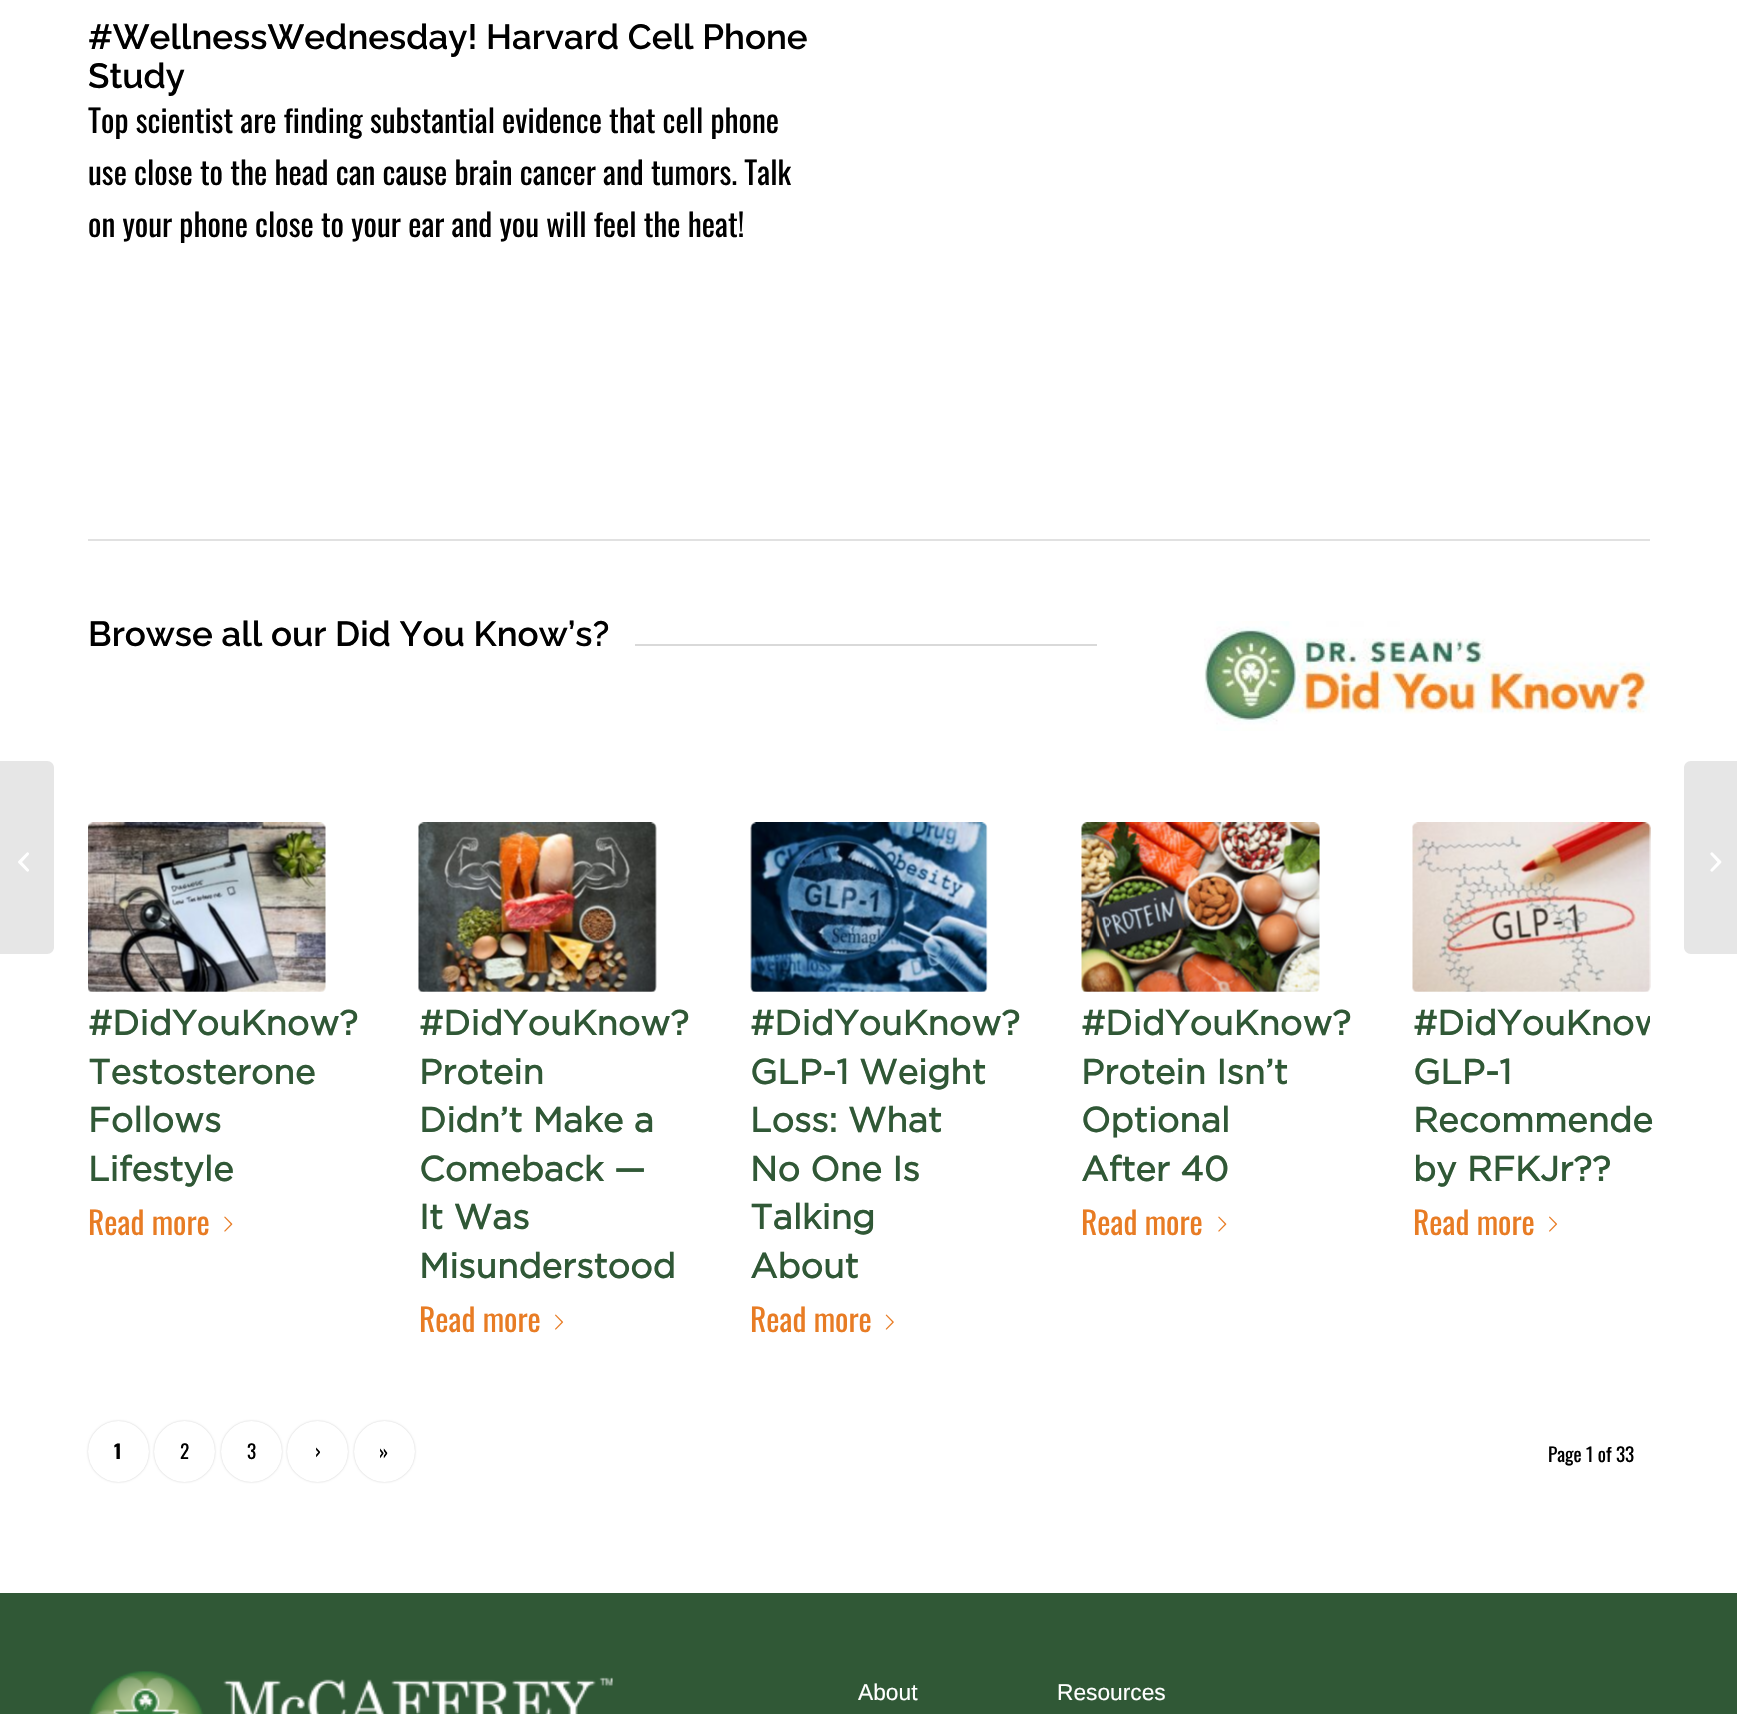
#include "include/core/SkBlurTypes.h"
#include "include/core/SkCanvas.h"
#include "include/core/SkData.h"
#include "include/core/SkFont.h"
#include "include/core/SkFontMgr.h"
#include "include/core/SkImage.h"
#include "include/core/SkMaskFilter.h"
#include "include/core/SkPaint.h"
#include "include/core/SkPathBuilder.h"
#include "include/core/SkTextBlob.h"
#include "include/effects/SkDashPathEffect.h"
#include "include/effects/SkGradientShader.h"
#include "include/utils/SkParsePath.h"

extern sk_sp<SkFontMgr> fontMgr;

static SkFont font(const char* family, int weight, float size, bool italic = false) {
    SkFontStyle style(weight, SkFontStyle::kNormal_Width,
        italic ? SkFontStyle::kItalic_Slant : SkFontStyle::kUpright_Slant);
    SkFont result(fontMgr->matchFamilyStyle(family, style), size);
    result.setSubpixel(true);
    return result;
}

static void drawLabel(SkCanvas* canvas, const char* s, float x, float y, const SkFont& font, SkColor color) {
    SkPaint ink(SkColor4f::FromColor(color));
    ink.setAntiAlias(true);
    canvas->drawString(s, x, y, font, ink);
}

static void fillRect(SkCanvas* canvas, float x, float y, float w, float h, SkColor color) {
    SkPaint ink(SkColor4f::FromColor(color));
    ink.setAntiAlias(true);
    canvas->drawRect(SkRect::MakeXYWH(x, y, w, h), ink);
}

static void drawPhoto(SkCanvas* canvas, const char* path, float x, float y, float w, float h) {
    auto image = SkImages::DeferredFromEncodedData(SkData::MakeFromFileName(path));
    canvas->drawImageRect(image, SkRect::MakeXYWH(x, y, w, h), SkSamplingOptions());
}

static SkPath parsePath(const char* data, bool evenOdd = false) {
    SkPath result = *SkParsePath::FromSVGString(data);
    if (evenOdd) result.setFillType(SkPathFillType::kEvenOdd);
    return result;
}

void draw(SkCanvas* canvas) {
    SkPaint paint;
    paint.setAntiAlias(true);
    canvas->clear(0xFFFFFFFF);
    paint.setColor(0xFFE6E6E6);
    canvas->drawPath(parsePath("M0 761H47C51 761 54 764 54 768V947C54 951 51 954 47 954H0Z"), paint);
    drawPhoto(canvas, "assets/img1.png", 18, 852, 11, 20);
    SkFont font1 = font("Raleway", 600, 35);
    drawLabel(canvas, "#WellnessWednesday! Harvard Cell Phone", 88, 49, font1, 0xFF000000);
    drawLabel(canvas, "Study", 88, 88, font1, 0xFF000000);
    SkFont font2 = font("Oswald", 400, 31.5f);
    drawLabel(canvas, "Top scientist are finding substantial evidence that cell phone", 88, 133, font2, 0xFF000000);
    drawLabel(canvas, "use close to the head can cause brain cancer and tumors. Talk", 88, 185, font2, 0xFF000000);
    drawLabel(canvas, "on your phone close to your ear and you will feel the heat!", 88, 237, font2, 0xFF000000);
    fillRect(canvas, 88, 539, 1562, 2, 0xFFE1E1E1);
    drawLabel(canvas, "Browse all our Did You Know’s?", 88, 646, font1, 0xFF000000);
    fillRect(canvas, 635, 644, 462, 2, 0xFFD9D9D9);
    drawPhoto(canvas, "assets/img2.png", 1204, 621, 446, 110);
    drawPhoto(canvas, "assets/img3.png", 88, 822, 238, 170);
    SkFont font3 = font("Gotham", 700, 34.75f);
    drawLabel(canvas, "#DidYouKnow?", 88, 1035, font3, 0xFF305836);
    drawLabel(canvas, "Testosterone", 88, 1084, font3, 0xFF305836);
    drawLabel(canvas, "Follows", 88, 1132, font3, 0xFF305836);
    drawLabel(canvas, "Lifestyle", 88, 1181, font3, 0xFF305836);
    drawLabel(canvas, "Read more", 88, 1235, font2, 0xFFE87C24);
    drawPhoto(canvas, "assets/img4.png", 224, 1216, 9, 16);
    drawPhoto(canvas, "assets/img5.png", 418, 822, 239, 170);
    drawLabel(canvas, "#DidYouKnow?", 419, 1035, font3, 0xFF305836);
    drawLabel(canvas, "Protein", 419, 1084, font3, 0xFF305836);
    drawLabel(canvas, "Didn’t Make a", 419, 1132, font3, 0xFF305836);
    drawLabel(canvas, "Comeback —", 419, 1181, font3, 0xFF305836);
    drawLabel(canvas, "It Was", 419, 1229, font3, 0xFF305836);
    drawLabel(canvas, "Misunderstood", 419, 1278, font3, 0xFF305836);
    drawLabel(canvas, "Read more", 419, 1332, font2, 0xFFE87C24);
    drawPhoto(canvas, "assets/img6.png", 555, 1314, 9, 16);
    drawPhoto(canvas, "assets/img7.png", 750, 822, 238, 170);
    drawLabel(canvas, "#DidYouKnow?", 750, 1035, font3, 0xFF305836);
    drawLabel(canvas, "GLP-1 Weight", 750, 1084, font3, 0xFF305836);
    drawLabel(canvas, "Loss: What", 750, 1132, font3, 0xFF305836);
    drawLabel(canvas, "No One Is", 750, 1181, font3, 0xFF305836);
    drawLabel(canvas, "Talking", 750, 1229, font3, 0xFF305836);
    drawLabel(canvas, "About", 750, 1278, font3, 0xFF305836);
    drawLabel(canvas, "Read more", 750, 1332, font2, 0xFFE87C24);
    drawPhoto(canvas, "assets/img8.png", 885, 1314, 9, 16);
    drawPhoto(canvas, "assets/img9.png", 1081, 822, 239, 170);
    drawLabel(canvas, "#DidYouKnow?", 1081, 1035, font3, 0xFF305836);
    drawLabel(canvas, "Protein Isn’t", 1081, 1084, font3, 0xFF305836);
    drawLabel(canvas, "Optional", 1081, 1132, font3, 0xFF305836);
    drawLabel(canvas, "After 40", 1081, 1181, font3, 0xFF305836);
    drawLabel(canvas, "Read more", 1081, 1235, font2, 0xFFE87C24);
    drawPhoto(canvas, "assets/img4.png", 1218, 1216, 9, 16);
    drawPhoto(canvas, "assets/img10.png", 1412, 822, 239, 170);
    canvas->save();
    canvas->clipRect(SkRect::MakeXYWH(88, 823, 1562, 596));
    drawLabel(canvas, "#DidYouKnow", 1413, 1035, font3, 0xFF305836);
    canvas->restore();
    drawLabel(canvas, "GLP-1", 1413, 1084, font3, 0xFF305836);
    drawLabel(canvas, "Recommende", 1413, 1132, font3, 0xFF305836);
    drawLabel(canvas, "by RFKJr?\077", 1413, 1181, font3, 0xFF305836);
    drawLabel(canvas, "Read more", 1413, 1235, font2, 0xFFE87C24);
    drawPhoto(canvas, "assets/img6.png", 1549, 1216, 9, 16);
    paint.setColor(0x33000000);
    paint.setMaskFilter(SkMaskFilter::MakeBlur(kNormal_SkBlurStyle, 1));
    canvas->drawRoundRect(SkRect::MakeXYWH(88, 1421, 61, 61), 30.5f, 30.5f, paint);
    paint.setMaskFilter(nullptr);
    paint.setColor(0xFFFFFFFF);
    canvas->drawCircle(118.5f, 1451.5f, 30.5f, paint);
    SkFont font4 = font("Oswald", 700, 19.25f);
    drawLabel(canvas, "1", 114, 1459, font4, 0xFF000000);
    paint.setColor(0x33000000);
    paint.setMaskFilter(SkMaskFilter::MakeBlur(kNormal_SkBlurStyle, 1));
    canvas->drawRoundRect(SkRect::MakeXYWH(154, 1421, 61, 61), 30.5f, 30.5f, paint);
    paint.setMaskFilter(nullptr);
    paint.setColor(0xFFFFFFFF);
    canvas->drawCircle(184.5f, 1451.5f, 30.5f, paint);
    SkFont font5 = font("Oswald", 400, 19.25f);
    drawLabel(canvas, "2", 180, 1459, font5, 0xFF000000);
    paint.setColor(0x33000000);
    paint.setMaskFilter(SkMaskFilter::MakeBlur(kNormal_SkBlurStyle, 1));
    canvas->drawRoundRect(SkRect::MakeXYWH(221, 1421, 61, 61), 30.5f, 30.5f, paint);
    paint.setMaskFilter(nullptr);
    paint.setColor(0xFFFFFFFF);
    canvas->drawCircle(251.5f, 1451.5f, 30.5f, paint);
    drawLabel(canvas, "3", 247, 1459, font5, 0xFF000000);
    paint.setColor(0x33000000);
    paint.setMaskFilter(SkMaskFilter::MakeBlur(kNormal_SkBlurStyle, 1));
    canvas->drawRoundRect(SkRect::MakeXYWH(287, 1421, 61, 61), 30.5f, 30.5f, paint);
    paint.setMaskFilter(nullptr);
    paint.setColor(0xFFFFFFFF);
    canvas->drawCircle(317.5f, 1451.5f, 30.5f, paint);
    drawLabel(canvas, "›", 315, 1459, font5, 0xFF000000);
    paint.setColor(0x33000000);
    paint.setMaskFilter(SkMaskFilter::MakeBlur(kNormal_SkBlurStyle, 1));
    canvas->drawRoundRect(SkRect::MakeXYWH(354, 1421, 61, 61), 30.5f, 30.5f, paint);
    paint.setMaskFilter(nullptr);
    paint.setColor(0xFFFFFFFF);
    canvas->drawCircle(384.5f, 1451.5f, 30.5f, paint);
    drawLabel(canvas, "»", 379, 1459, font5, 0xFF000000);
    drawLabel(canvas, "Page 1 of 33", 1548, 1462, font5, 0xFF000000);
    fillRect(canvas, 0, 1593, 1737, 121, 0xFF305836);
    drawPhoto(canvas, "assets/img11.png", 89, 1671, 524, 43);
    SkFont font6 = font("Liberation Sans", 400, 22.75f);
    drawLabel(canvas, "About", 858, 1700, font6, 0xFFFFFFFF);
    drawLabel(canvas, "Resources", 1057, 1700, font6, 0xFFFFFFFF);
    paint.setColor(0xFFE6E6E6);
    canvas->drawPath(parsePath("M1691 761H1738V954H1691C1687 954 1684 951 1684 947V768C1684 764 1687 761 1691 761Z"), paint);
    drawPhoto(canvas, "assets/img12.png", 1710, 852, 12, 20);
}
